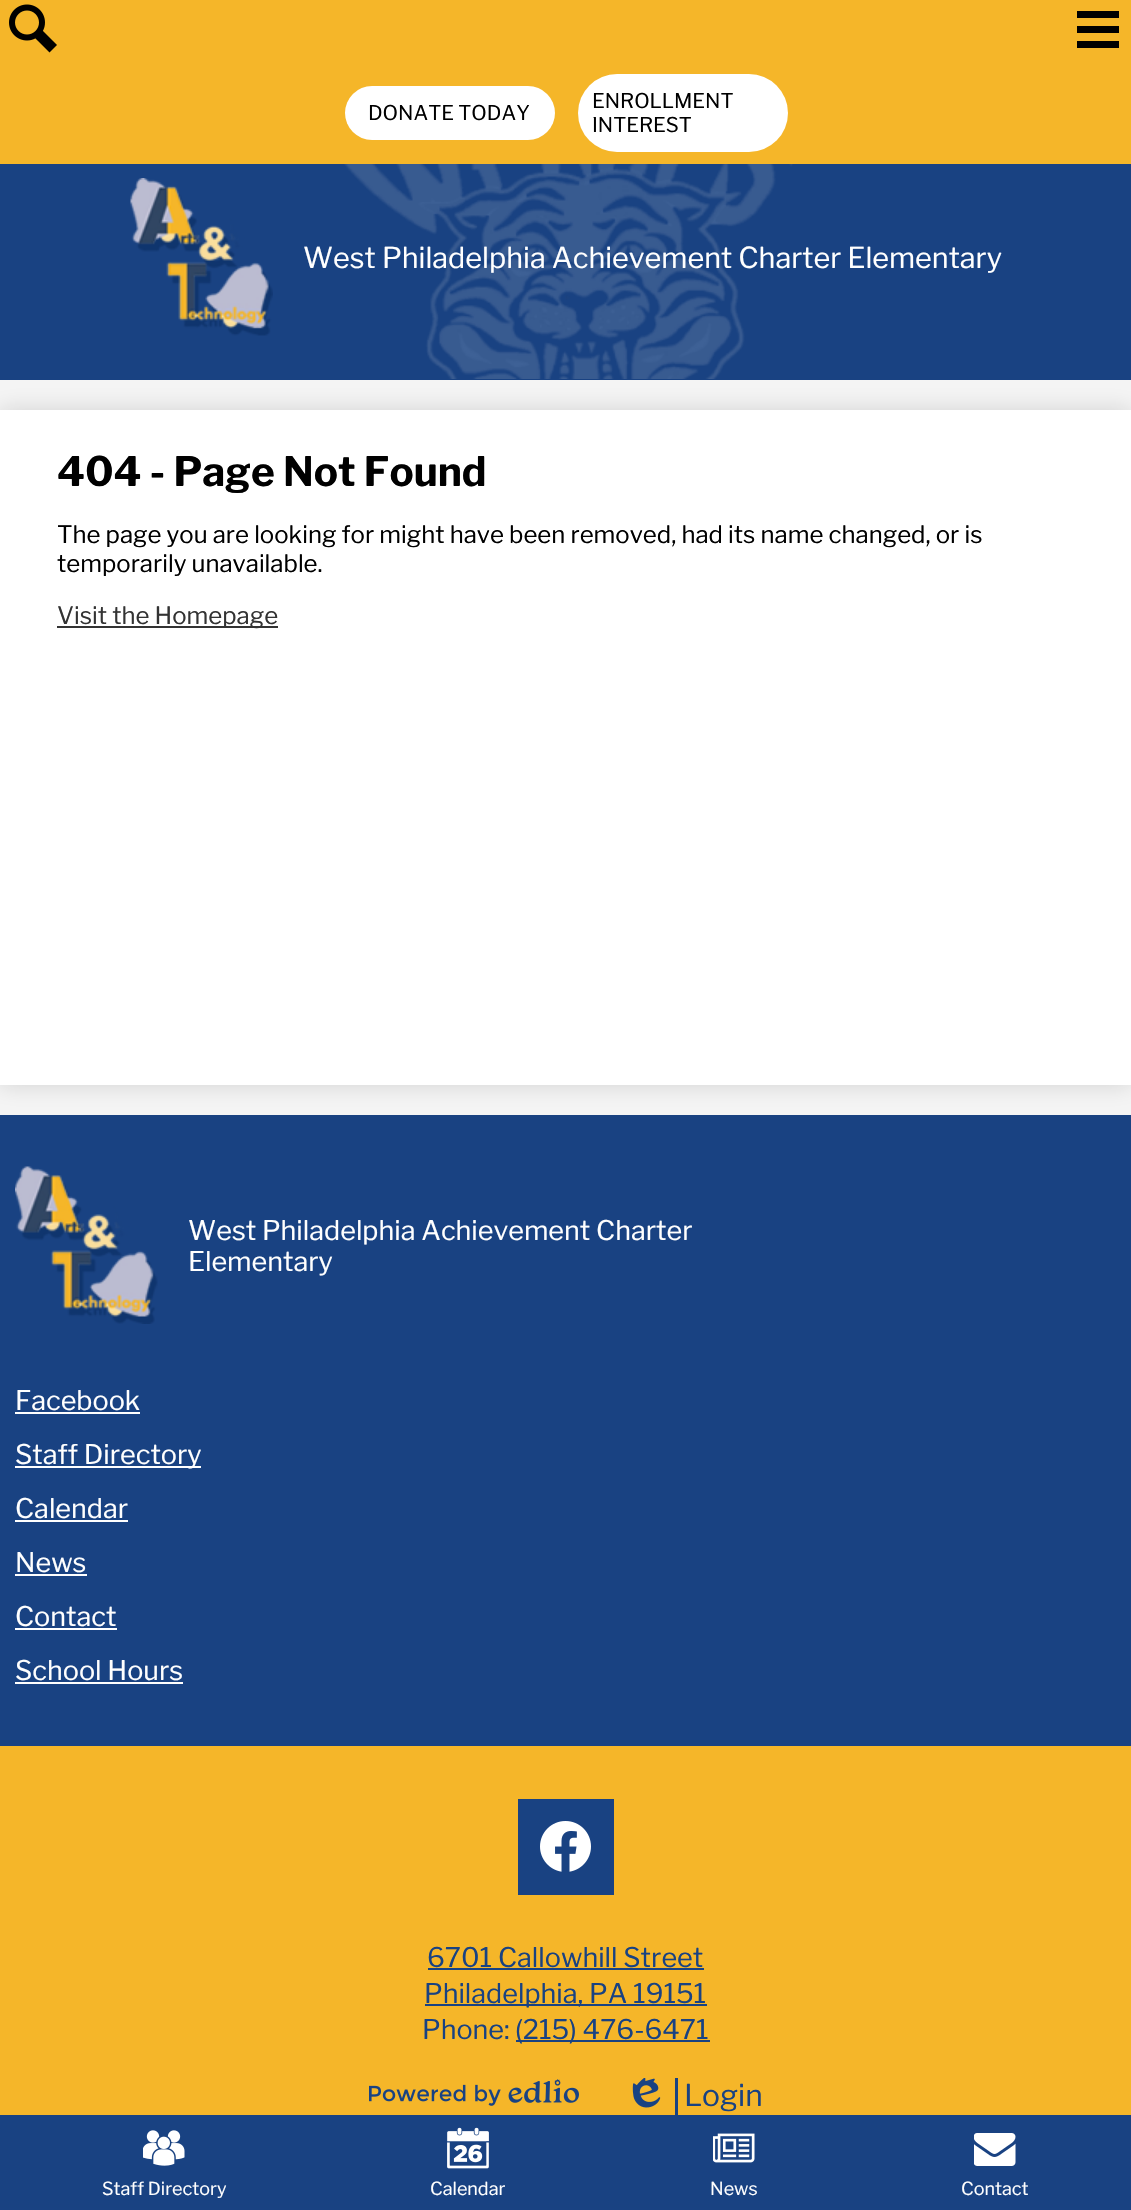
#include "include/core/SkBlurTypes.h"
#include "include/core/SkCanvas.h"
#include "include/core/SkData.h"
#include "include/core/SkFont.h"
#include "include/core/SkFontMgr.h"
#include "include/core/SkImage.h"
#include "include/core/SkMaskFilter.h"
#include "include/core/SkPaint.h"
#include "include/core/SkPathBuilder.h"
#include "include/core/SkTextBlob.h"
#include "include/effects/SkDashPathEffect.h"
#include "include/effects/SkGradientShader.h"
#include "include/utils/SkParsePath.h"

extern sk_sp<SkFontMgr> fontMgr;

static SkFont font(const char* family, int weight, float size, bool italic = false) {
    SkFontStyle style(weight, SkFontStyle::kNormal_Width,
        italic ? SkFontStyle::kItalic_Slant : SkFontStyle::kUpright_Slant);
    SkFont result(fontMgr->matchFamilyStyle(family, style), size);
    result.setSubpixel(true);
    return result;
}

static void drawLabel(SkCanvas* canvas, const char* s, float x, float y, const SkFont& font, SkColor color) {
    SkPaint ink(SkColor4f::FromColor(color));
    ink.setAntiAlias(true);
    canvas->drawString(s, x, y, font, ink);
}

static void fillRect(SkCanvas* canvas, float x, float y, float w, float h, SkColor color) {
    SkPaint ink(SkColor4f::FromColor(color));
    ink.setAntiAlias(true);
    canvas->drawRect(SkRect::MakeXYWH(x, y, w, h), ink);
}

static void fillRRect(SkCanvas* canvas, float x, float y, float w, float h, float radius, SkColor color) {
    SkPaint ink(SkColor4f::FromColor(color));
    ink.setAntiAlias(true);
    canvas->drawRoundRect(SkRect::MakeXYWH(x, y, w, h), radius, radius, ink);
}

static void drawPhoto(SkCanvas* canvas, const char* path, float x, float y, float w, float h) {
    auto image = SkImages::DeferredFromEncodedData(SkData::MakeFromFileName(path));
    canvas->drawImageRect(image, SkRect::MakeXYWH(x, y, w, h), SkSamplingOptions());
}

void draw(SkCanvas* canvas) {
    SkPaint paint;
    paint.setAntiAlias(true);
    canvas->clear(0xFFF5F5F5);
    fillRect(canvas, 0, 1115, 1131, 631, 0xFF194282);
    paint.setColor(0x26000000);
    paint.setMaskFilter(SkMaskFilter::MakeBlur(kNormal_SkBlurStyle, 11));
    canvas->drawRect(SkRect::MakeXYWH(0, 410, 1131, 675), paint);
    paint.setMaskFilter(nullptr);
    fillRect(canvas, 0, 164, 1131, 216, 0xFF194282);
    drawPhoto(canvas, "assets/img1.png", 344, 164, 449, 215);
    fillRect(canvas, 0, 0, 1131, 164, 0xFFF5B629);
    fillRect(canvas, 1077, 11, 42, 7, 0xFF000000);
    fillRect(canvas, 1077, 26, 42, 7, 0xFF000000);
    fillRect(canvas, 1077, 41, 42, 7, 0xFF000000);
    drawPhoto(canvas, "assets/img2.png", 9, 4, 48, 49);
    fillRRect(canvas, 345, 86, 210, 54, 27, 0xFFFFFFFF);
    SkFont font1 = font("Libre Franklin", 400, 20.25f);
    drawLabel(canvas, "DONATE TODAY", 368, 120, font1, 0xFF000000);
    fillRRect(canvas, 578, 74, 210, 78, 39, 0xFFFFFFFF);
    drawLabel(canvas, "ENROLLMENT", 592, 108, font1, 0xFF000000);
    drawLabel(canvas, "INTEREST", 592, 132, font1, 0xFF000000);
    drawPhoto(canvas, "assets/img3.png", 130, 178, 143, 158);
    SkFont font2 = font("Libre Franklin", 400, 28.8f);
    drawLabel(canvas, "West Philadelphia Achievement Charter Elementary", 303, 268, font2, 0xFFFFFFFF);
    fillRect(canvas, 0, 410, 1131, 675, 0xFFFFFFFF);
    SkFont font3 = font("Libre Franklin", 700, 40.5f);
    drawLabel(canvas, "404 - Page Not Found", 57, 486, font3, 0xFF000000);
    SkFont font4 = font("Libre Franklin", 400, 24);
    drawLabel(canvas, "The page you are looking for might have been removed, had its name changed, or is", 57, 543, font4, 0xFF000000);
    drawLabel(canvas, "temporarily unavailable.", 57, 572, font4, 0xFF000000);
    fillRect(canvas, 57, 626, 221, 2, 0xFF333333);
    drawLabel(canvas, "Visit the Homepage", 57, 624, font4, 0xFF333333);
    drawPhoto(canvas, "assets/img4.png", 15, 1166, 143, 158);
    SkFont font5 = font("Libre Franklin", 400, 27);
    drawLabel(canvas, "West Philadelphia Achievement Charter", 188, 1240, font5, 0xFFFFFFFF);
    drawLabel(canvas, "Elementary", 188, 1271, font5, 0xFFFFFFFF);
    drawLabel(canvas, "Facebook", 15, 1410, font5, 0xFFFFFFFF);
    fillRect(canvas, 15, 1412, 125, 2, 0xFFFFFFFF);
    fillRect(canvas, 15, 1466, 186, 2, 0xFFFFFFFF);
    drawLabel(canvas, "Staff Directory", 15, 1464, font5, 0xFFFFFFFF);
    drawLabel(canvas, "Calendar", 15, 1518, font5, 0xFFFFFFFF);
    fillRect(canvas, 15, 1520, 113, 2, 0xFFFFFFFF);
    drawLabel(canvas, "News", 15, 1572, font5, 0xFFFFFFFF);
    fillRect(canvas, 15, 1574, 72, 2, 0xFFFFFFFF);
    drawLabel(canvas, "Contact", 15, 1626, font5, 0xFFFFFFFF);
    fillRect(canvas, 15, 1628, 102, 2, 0xFFFFFFFF);
    drawLabel(canvas, "School Hours", 15, 1680, font5, 0xFFFFFFFF);
    fillRect(canvas, 15, 1682, 168, 2, 0xFFFFFFFF);
    fillRect(canvas, 0, 1746, 1131, 369, 0xFFF5B629);
    fillRect(canvas, 518, 1799, 96, 96, 0xFF194282);
    drawPhoto(canvas, "assets/img5.png", 540, 1821, 51, 51);
    drawLabel(canvas, "6701 Callowhill Street", 427, 1967, font5, 0xFF194282);
    fillRect(canvas, 428, 1968, 276, 2, 0xFF194282);
    fillRect(canvas, 425, 2004, 282, 2, 0xFF194282);
    drawLabel(canvas, "Philadelphia, PA 19151", 424, 2003, font5, 0xFF194282);
    drawLabel(canvas, "Phone:", 422, 2039, font5, 0xFF194282);
    fillRect(canvas, 516, 2040, 194, 2, 0xFF194282);
    drawLabel(canvas, "(215) 476-6471", 515, 2039, font5, 0xFF194282);
    drawPhoto(canvas, "assets/img6.png", 369, 2079, 210, 27);
    fillRect(canvas, 675, 2078, 3, 37, 0xFF194282);
    drawPhoto(canvas, "assets/img7.png", 632, 2078, 29, 30);
    SkFont font6 = font("Libre Franklin", 400, 30);
    drawLabel(canvas, "Login", 684, 2106, font6, 0xFF194282);
    fillRect(canvas, 0, 2115, 1131, 95, 0xFF194282);
    drawPhoto(canvas, "assets/img8.png", 143, 2130, 42, 36);
    SkFont font7 = font("Libre Franklin", 400, 18);
    drawLabel(canvas, "Staff Directory", 102, 2195, font7, 0xFFFFFFFF);
    drawPhoto(canvas, "assets/img9.png", 447, 2127, 42, 42);
    drawLabel(canvas, "Calendar", 430, 2195, font7, 0xFFFFFFFF);
    drawPhoto(canvas, "assets/img10.png", 713, 2133, 42, 30);
    drawLabel(canvas, "News", 710, 2195, font7, 0xFFFFFFFF);
    drawPhoto(canvas, "assets/img11.png", 974, 2133, 42, 33);
    drawLabel(canvas, "Contact", 961, 2195, font7, 0xFFFFFFFF);
}
